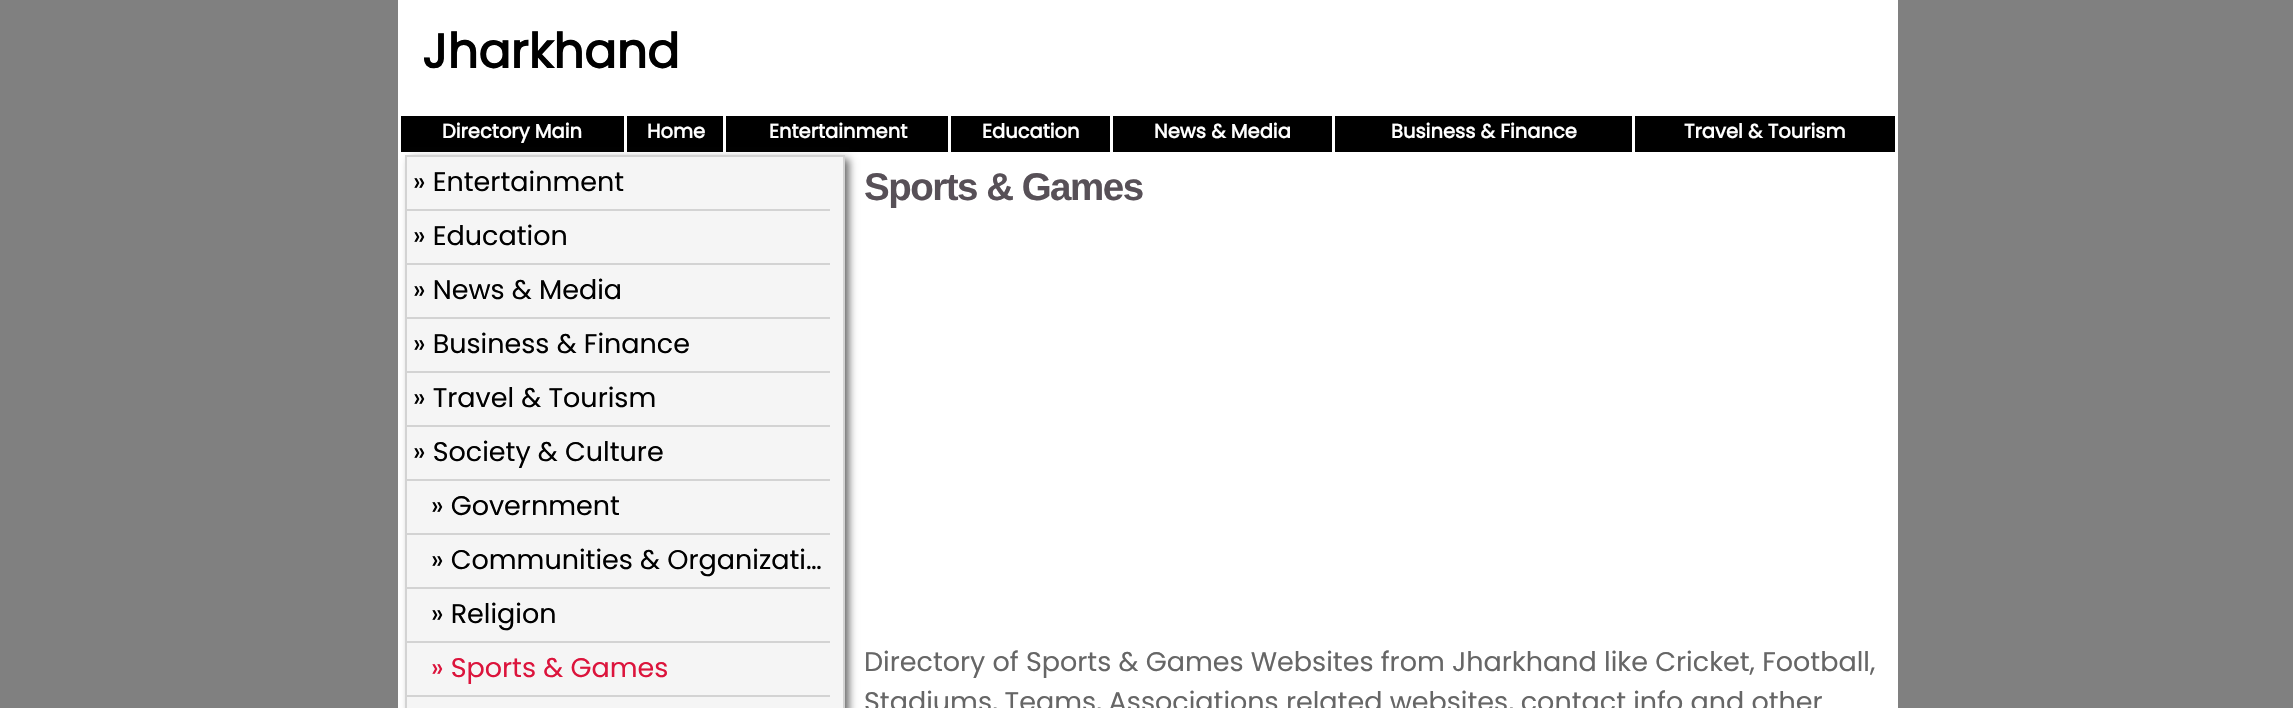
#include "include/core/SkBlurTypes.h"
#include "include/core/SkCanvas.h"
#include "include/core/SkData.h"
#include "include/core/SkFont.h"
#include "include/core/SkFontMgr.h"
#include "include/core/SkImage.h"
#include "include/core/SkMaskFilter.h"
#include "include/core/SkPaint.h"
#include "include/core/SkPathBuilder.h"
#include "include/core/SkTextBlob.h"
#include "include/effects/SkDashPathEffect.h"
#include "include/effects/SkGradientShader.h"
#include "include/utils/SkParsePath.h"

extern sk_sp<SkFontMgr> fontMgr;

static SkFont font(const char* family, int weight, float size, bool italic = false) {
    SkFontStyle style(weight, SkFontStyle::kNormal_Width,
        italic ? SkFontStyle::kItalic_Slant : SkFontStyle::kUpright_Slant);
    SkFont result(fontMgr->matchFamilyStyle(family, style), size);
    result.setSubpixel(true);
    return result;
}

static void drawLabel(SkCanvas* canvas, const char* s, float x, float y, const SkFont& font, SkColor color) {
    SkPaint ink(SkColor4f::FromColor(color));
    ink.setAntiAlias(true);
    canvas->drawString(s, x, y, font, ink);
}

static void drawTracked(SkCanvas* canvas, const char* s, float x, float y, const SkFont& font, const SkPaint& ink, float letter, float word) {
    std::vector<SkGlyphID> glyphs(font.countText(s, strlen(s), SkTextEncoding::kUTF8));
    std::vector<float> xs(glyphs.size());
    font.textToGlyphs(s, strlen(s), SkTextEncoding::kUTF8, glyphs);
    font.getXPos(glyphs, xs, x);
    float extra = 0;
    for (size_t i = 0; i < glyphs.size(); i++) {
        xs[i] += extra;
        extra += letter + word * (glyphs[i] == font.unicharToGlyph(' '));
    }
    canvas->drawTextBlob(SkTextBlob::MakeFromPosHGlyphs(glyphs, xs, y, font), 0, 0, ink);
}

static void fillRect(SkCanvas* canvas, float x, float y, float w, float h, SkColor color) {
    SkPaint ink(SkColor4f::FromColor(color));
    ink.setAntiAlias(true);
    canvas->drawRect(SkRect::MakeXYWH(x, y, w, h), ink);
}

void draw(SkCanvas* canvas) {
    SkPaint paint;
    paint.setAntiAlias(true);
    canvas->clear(0xFF808080);
    fillRect(canvas, 398, 0, 1500, 708, 0xFFFFFFFF);
    SkFont font1 = font("Poppins", 700, 48);
    drawLabel(canvas, "Jharkhand", 422, 68, font1, 0xFF000000);
    fillRect(canvas, 401, 116, 223, 36, 0xFF000000);
    SkFont font2 = font("Poppins", 700, 19.5f);
    drawLabel(canvas, "Directory Main", 442, 138, font2, 0xFFFFFFFF);
    fillRect(canvas, 627, 116, 96, 36, 0xFF000000);
    drawLabel(canvas, "Home", 647, 138, font2, 0xFFFFFFFF);
    fillRect(canvas, 726, 116, 222, 36, 0xFF000000);
    drawLabel(canvas, "Entertainment", 769, 138, font2, 0xFFFFFFFF);
    fillRect(canvas, 951, 116, 159, 36, 0xFF000000);
    drawLabel(canvas, "Education", 982, 138, font2, 0xFFFFFFFF);
    fillRect(canvas, 1113, 116, 219, 36, 0xFF000000);
    drawLabel(canvas, "News & Media", 1154, 138, font2, 0xFFFFFFFF);
    fillRect(canvas, 1335, 116, 297, 36, 0xFF000000);
    drawLabel(canvas, "Business & Finance", 1391, 138, font2, 0xFFFFFFFF);
    fillRect(canvas, 1635, 116, 260, 36, 0xFF000000);
    drawLabel(canvas, "Travel & Tourism", 1684, 138, font2, 0xFFFFFFFF);
    paint.setColor(0xFF696969);
    paint.setMaskFilter(SkMaskFilter::MakeBlur(kNormal_SkBlurStyle, 4));
    canvas->drawRect(SkRect::MakeXYWH(410, 159, 439, 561), paint);
    paint.setMaskFilter(nullptr);
    paint.setColor(0xFFF5F5F5);
    canvas->drawRect(SkRect::MakeXYWH(406, 156, 438, 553), paint);
    paint.setStroke(true);
    paint.setStrokeWidth(2);
    paint.setColor(0xFFD3D3D3);
    canvas->drawRect(SkRect::MakeXYWH(406, 156, 438, 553), paint);
    fillRect(canvas, 407, 209, 423, 2, 0xFFD3D3D3);
    SkFont font3 = font("Poppins", 400, 27);
    drawLabel(canvas, "» Entertainment", 413, 191, font3, 0xFF000000);
    fillRect(canvas, 407, 263, 423, 2, 0xFFD3D3D3);
    drawLabel(canvas, "» Education", 413, 245, font3, 0xFF000000);
    fillRect(canvas, 407, 317, 423, 2, 0xFFD3D3D3);
    drawLabel(canvas, "» News & Media", 413, 299, font3, 0xFF000000);
    fillRect(canvas, 407, 371, 423, 2, 0xFFD3D3D3);
    drawLabel(canvas, "» Business & Finance", 413, 353, font3, 0xFF000000);
    fillRect(canvas, 407, 425, 423, 2, 0xFFD3D3D3);
    drawLabel(canvas, "» Travel & Tourism", 413, 407, font3, 0xFF000000);
    fillRect(canvas, 407, 479, 423, 2, 0xFFD3D3D3);
    drawLabel(canvas, "» Society & Culture", 413, 461, font3, 0xFF000000);
    fillRect(canvas, 407, 533, 423, 2, 0xFFD3D3D3);
    drawLabel(canvas, "» Government", 431, 515, font3, 0xFF000000);
    fillRect(canvas, 407, 587, 423, 2, 0xFFD3D3D3);
    drawLabel(canvas, "» Communities & Organizati…", 431, 569, font3, 0xFF000000);
    fillRect(canvas, 407, 641, 423, 2, 0xFFD3D3D3);
    drawLabel(canvas, "» Religion", 431, 623, font3, 0xFF000000);
    fillRect(canvas, 407, 695, 423, 2, 0xFFD3D3D3);
    drawLabel(canvas, "» Sports & Games", 431, 677, font3, 0xFFDC143C);
    SkFont font4 = font("Liberation Sans", 700, 38.5f);
    paint.setStroke(false);
    paint.setColor(0xFF575057);
    drawTracked(canvas, "Sports & Games", 864, 200, font4, paint, -1.5f, 0);
    drawLabel(canvas, "Directory of Sports & Games Websites from Jharkhand like Cricket, Football,", 864, 671, font3, 0xFF666666);
    drawLabel(canvas, "Stadiums, Teams, Associations related websites, contact info and other", 864, 711, font3, 0xFF666666);
}
